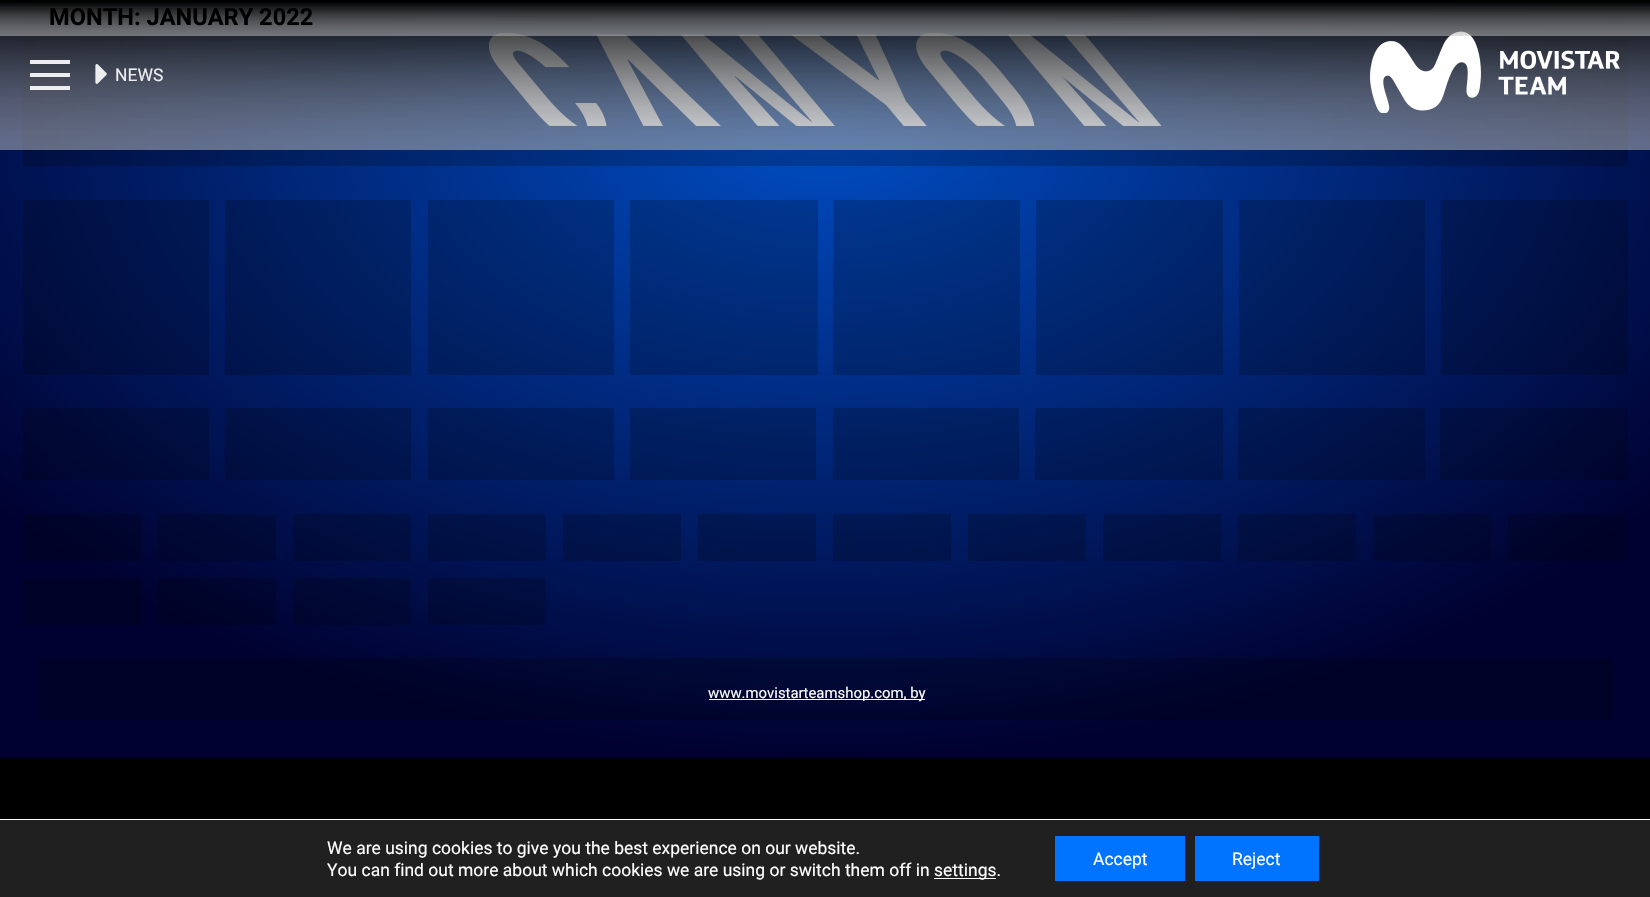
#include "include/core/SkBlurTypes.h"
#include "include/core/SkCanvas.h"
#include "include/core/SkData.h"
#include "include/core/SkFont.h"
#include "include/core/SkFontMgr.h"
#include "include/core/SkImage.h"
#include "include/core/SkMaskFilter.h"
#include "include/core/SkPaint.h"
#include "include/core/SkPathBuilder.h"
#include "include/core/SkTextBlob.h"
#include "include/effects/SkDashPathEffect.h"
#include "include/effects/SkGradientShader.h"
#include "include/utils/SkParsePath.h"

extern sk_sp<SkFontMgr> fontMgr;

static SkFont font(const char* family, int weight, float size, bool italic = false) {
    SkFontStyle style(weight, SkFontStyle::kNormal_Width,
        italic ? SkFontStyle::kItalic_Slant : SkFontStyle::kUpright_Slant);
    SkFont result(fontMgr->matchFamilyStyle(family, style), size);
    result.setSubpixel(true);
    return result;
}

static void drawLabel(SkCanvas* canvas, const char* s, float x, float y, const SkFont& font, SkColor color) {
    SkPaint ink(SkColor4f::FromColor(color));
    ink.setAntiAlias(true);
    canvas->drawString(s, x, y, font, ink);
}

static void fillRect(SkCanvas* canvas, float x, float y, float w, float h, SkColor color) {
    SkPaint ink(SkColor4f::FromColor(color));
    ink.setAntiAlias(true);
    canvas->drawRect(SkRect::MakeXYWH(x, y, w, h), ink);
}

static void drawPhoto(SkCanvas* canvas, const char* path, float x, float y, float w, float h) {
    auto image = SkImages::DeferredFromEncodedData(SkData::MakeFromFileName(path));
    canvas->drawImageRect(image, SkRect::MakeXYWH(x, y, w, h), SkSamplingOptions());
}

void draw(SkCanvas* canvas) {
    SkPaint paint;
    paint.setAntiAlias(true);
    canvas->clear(0xFFFFFFFF);
    {
        const SkColor colors[] = {0xFF004EC5, 0xFF000130};
        const float stops[] = {0, 1};
        SkMatrix m = SkMatrix::Translate(825, 119).preScale(1048, 638);
        paint.setShader(SkGradientShader::MakeRadial({0, 0}, 1, colors, stops, 2, SkTileMode::kClamp, 0, &m));
        paint.setAlpha(255);
    }
    canvas->drawRect(SkRect::MakeXYWH(0, 0, 1650, 758), paint);
    {
        const SkColor colors[] = {0xFF003E9E, 0xFF000126};
        const float stops[] = {0, 1};
        SkMatrix m = SkMatrix::Translate(825, 119).preScale(1048, 638);
        paint.setShader(SkGradientShader::MakeRadial({0, 0}, 1, colors, stops, 2, SkTileMode::kClamp, 0, &m));
        paint.setAlpha(255);
    }
    canvas->drawRect(SkRect::MakeXYWH(23, 0, 1605, 166), paint);
    drawPhoto(canvas, "assets/img3.png", 489, 33, 672, 93);
    {
        const SkColor colors[] = {0xE6000000, 0x80C4C4C4};
        const float stops[] = {0.05f, 1};
        const SkPoint ends[] = {{825, 0}, {825, 150}};
        paint.setShader(SkGradientShader::MakeLinear(ends, colors, stops, 2, SkTileMode::kClamp));
        paint.setAlpha(255);
    }
    canvas->drawRect(SkRect::MakeXYWH(0, 0, 1650, 150), paint);
    drawPhoto(canvas, "assets/img2.png", 1370, 31, 250, 82);
    {
        const SkColor colors[] = {0xE6000000, 0x80C4C4C4};
        const float stops[] = {0.05f, 1};
        const SkPoint ends[] = {{825, 0}, {825, 36}};
        paint.setShader(SkGradientShader::MakeLinear(ends, colors, stops, 2, SkTileMode::kClamp));
        paint.setAlpha(255);
    }
    canvas->drawRect(SkRect::MakeXYWH(0, 0, 1650, 36), paint);
    SkFont font1 = font("Roboto", 700, 23.6f);
    drawLabel(canvas, "MONTH: JANUARY 2022", 49, 25, font1, 0xFF000000);
    fillRect(canvas, 30, 60, 40, 4, 0xE6FFFFFF);
    fillRect(canvas, 30, 73, 40, 4, 0xE6FFFFFF);
    fillRect(canvas, 30, 86, 40, 4, 0xE6FFFFFF);
    drawPhoto(canvas, "assets/img1.png", 95, 64, 12, 20);
    SkFont font2 = font("Roboto", 400, 17.5f);
    drawLabel(canvas, "NEWS", 115, 81, font2, 0xFFECEDEE);
    {
        const SkColor colors[] = {0xFF003E9E, 0xFF000126};
        const float stops[] = {0, 1};
        SkMatrix m = SkMatrix::Translate(825, 119).preScale(1048, 638);
        paint.setShader(SkGradientShader::MakeRadial({0, 0}, 1, colors, stops, 2, SkTileMode::kClamp, 0, &m));
        paint.setAlpha(255);
    }
    canvas->drawRect(SkRect::MakeXYWH(428, 578, 118, 47), paint);
    canvas->drawRect(SkRect::MakeXYWH(293, 578, 118, 47), paint);
    canvas->drawRect(SkRect::MakeXYWH(158, 578, 118, 47), paint);
    canvas->drawRect(SkRect::MakeXYWH(23, 578, 118, 47), paint);
    canvas->drawRect(SkRect::MakeXYWH(1508, 514, 118, 47), paint);
    canvas->drawRect(SkRect::MakeXYWH(1373, 514, 118, 47), paint);
    canvas->drawRect(SkRect::MakeXYWH(1238, 514, 118, 47), paint);
    canvas->drawRect(SkRect::MakeXYWH(1103, 514, 118, 47), paint);
    canvas->drawRect(SkRect::MakeXYWH(968, 514, 118, 47), paint);
    canvas->drawRect(SkRect::MakeXYWH(833, 514, 118, 47), paint);
    canvas->drawRect(SkRect::MakeXYWH(698, 514, 118, 47), paint);
    canvas->drawRect(SkRect::MakeXYWH(563, 514, 118, 47), paint);
    canvas->drawRect(SkRect::MakeXYWH(428, 514, 118, 47), paint);
    canvas->drawRect(SkRect::MakeXYWH(293, 514, 118, 47), paint);
    canvas->drawRect(SkRect::MakeXYWH(158, 514, 118, 47), paint);
    canvas->drawRect(SkRect::MakeXYWH(23, 514, 118, 47), paint);
    canvas->drawRect(SkRect::MakeXYWH(1440, 408, 188, 72), paint);
    canvas->drawRect(SkRect::MakeXYWH(1238, 408, 187, 72), paint);
    canvas->drawRect(SkRect::MakeXYWH(1035, 408, 188, 72), paint);
    canvas->drawRect(SkRect::MakeXYWH(833, 408, 186, 72), paint);
    canvas->drawRect(SkRect::MakeXYWH(630, 408, 186, 72), paint);
    canvas->drawRect(SkRect::MakeXYWH(428, 408, 186, 72), paint);
    canvas->drawRect(SkRect::MakeXYWH(225, 408, 186, 72), paint);
    canvas->drawRect(SkRect::MakeXYWH(23, 408, 186, 72), paint);
    canvas->drawRect(SkRect::MakeXYWH(1441, 200, 187, 175), paint);
    canvas->drawRect(SkRect::MakeXYWH(1239, 200, 186, 175), paint);
    canvas->drawRect(SkRect::MakeXYWH(1036, 200, 187, 175), paint);
    canvas->drawRect(SkRect::MakeXYWH(833, 200, 187, 175), paint);
    canvas->drawRect(SkRect::MakeXYWH(630, 200, 188, 175), paint);
    canvas->drawRect(SkRect::MakeXYWH(428, 200, 186, 175), paint);
    canvas->drawRect(SkRect::MakeXYWH(225, 200, 186, 175), paint);
    canvas->drawRect(SkRect::MakeXYWH(23, 200, 186, 175), paint);
    canvas->drawRect(SkRect::MakeXYWH(38, 658, 1575, 62), paint);
    fillRect(canvas, 709, 699, 216, 1, 0xFFFFFFFF);
    SkFont font3 = font("Roboto", 400, 14.9f);
    drawLabel(canvas, "www.movistarteamshop.com, by", 708, 698, font3, 0xFFFFFFFF);
    fillRect(canvas, 0, 758, 1650, 61, 0xFF000000);
    fillRect(canvas, 0, 820, 1650, 77, 0xFF202020);
    drawLabel(canvas, "We are using cookies to give you the best experience on our website.", 327, 854, font2, 0xFFFFFFFF);
    drawLabel(canvas, "You can find out more about which cookies we are using or switch them off in", 327, 876, font2, 0xFFFFFFFF);
    fillRect(canvas, 934, 878, 62, 1, 0xFFFFFFFF);
    drawLabel(canvas, "settings.", 934, 876, font2, 0xFFFFFFFF);
    fillRect(canvas, 1055, 836, 130, 45, 0xFF0074FF);
    drawLabel(canvas, "Accept", 1093, 865, font2, 0xFFFFFFFF);
    fillRect(canvas, 1195, 836, 124, 45, 0xFF0074FF);
    drawLabel(canvas, "Reject", 1232, 865, font2, 0xFFFFFFFF);
}
